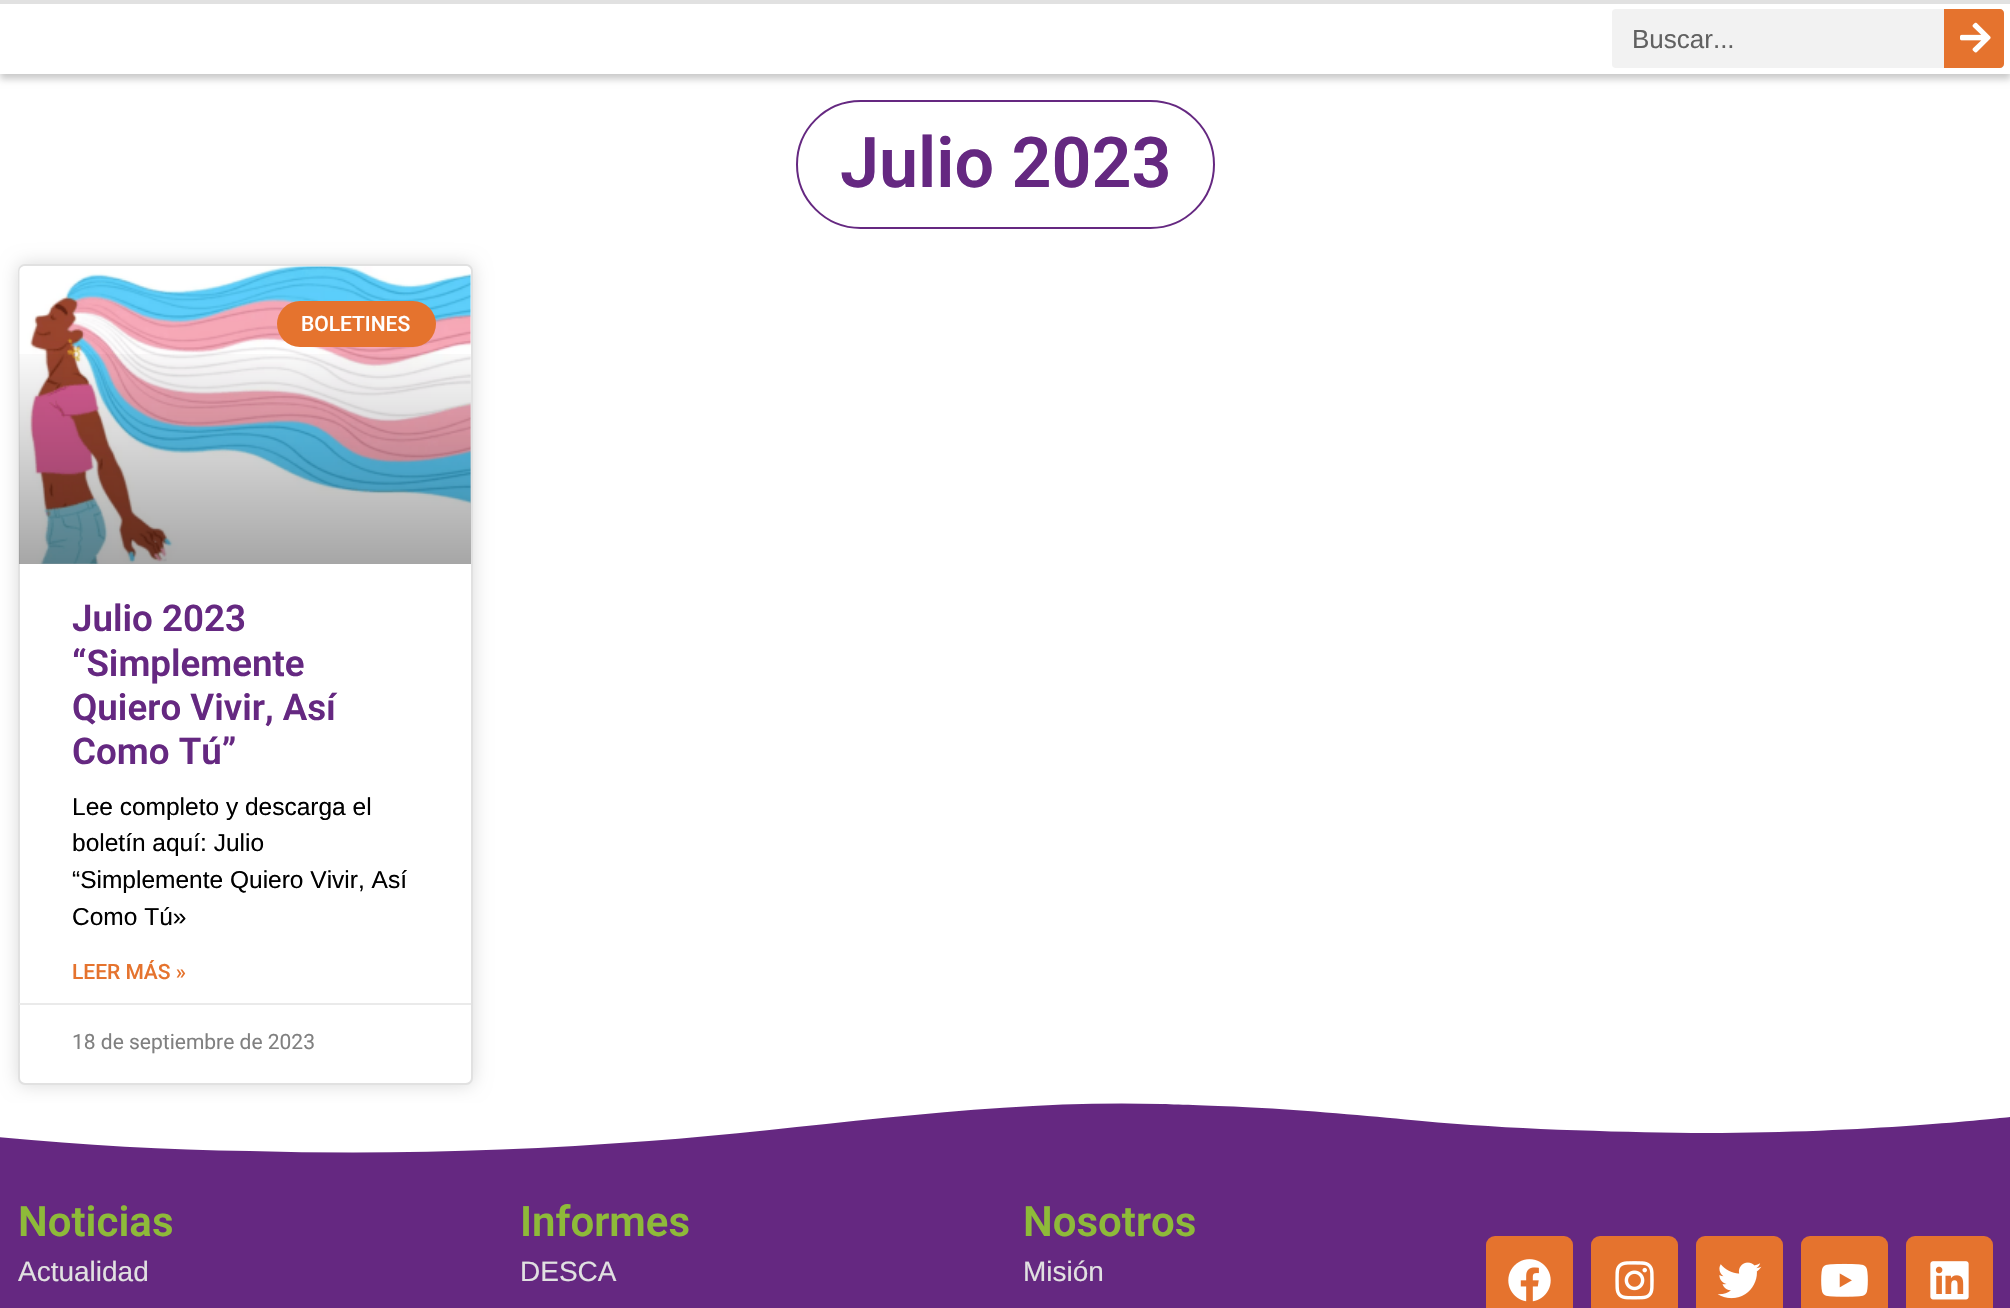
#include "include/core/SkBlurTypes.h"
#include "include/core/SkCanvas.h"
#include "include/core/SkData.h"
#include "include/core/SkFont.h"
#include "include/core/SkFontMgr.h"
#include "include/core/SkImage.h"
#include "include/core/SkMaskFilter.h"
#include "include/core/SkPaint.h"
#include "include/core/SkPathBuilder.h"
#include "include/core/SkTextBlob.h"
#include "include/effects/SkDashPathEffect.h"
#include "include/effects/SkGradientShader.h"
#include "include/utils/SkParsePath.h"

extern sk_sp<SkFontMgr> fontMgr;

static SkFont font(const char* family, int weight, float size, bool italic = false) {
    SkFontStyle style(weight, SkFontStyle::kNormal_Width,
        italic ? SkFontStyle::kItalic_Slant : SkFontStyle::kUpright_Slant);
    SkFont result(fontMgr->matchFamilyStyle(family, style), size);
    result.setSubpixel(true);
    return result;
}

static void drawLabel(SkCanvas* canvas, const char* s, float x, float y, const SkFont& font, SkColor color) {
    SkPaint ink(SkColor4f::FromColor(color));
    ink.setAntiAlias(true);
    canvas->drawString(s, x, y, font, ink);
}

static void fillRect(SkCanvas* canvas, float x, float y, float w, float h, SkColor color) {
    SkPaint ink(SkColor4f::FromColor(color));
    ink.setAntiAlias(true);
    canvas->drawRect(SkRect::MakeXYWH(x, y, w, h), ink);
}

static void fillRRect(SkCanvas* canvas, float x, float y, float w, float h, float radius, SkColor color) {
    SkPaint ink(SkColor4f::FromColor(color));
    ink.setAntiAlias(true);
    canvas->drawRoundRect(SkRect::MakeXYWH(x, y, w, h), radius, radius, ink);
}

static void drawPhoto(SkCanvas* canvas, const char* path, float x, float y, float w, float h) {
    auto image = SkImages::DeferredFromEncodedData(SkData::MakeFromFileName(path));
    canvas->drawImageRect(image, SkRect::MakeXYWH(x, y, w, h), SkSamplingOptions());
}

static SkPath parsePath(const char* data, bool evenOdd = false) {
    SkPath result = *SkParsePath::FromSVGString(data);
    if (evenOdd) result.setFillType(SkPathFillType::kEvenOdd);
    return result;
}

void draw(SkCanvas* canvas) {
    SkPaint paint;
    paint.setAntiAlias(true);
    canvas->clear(0xFFFFFFFF);
    paint.setColor(0x36000000);
    paint.setMaskFilter(SkMaskFilter::MakeBlur(kNormal_SkBlurStyle, 3.5f));
    canvas->drawRect(SkRect::MakeXYWH(0, 5, 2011, 74), paint);
    paint.setMaskFilter(nullptr);
    fillRect(canvas, 0, 4, 2010, 70, 0xFFFFFFFF);
    fillRect(canvas, 0, 0, 2010, 4, 0xFFE1E1E1);
    fillRRect(canvas, 1612, 9, 392, 59, 4, 0xFFF2F2F2);
    SkFont font1 = font("Liberation Sans", 400, 26);
    drawLabel(canvas, "Buscar...", 1632, 48, font1, 0xFF616161);
    paint.setColor(0xFFE5732E);
    canvas->drawPath(parsePath("M1944 9H2000C2002 9 2004 11 2004 13V64C2004 66 2002 68 2000 68H1944Z"), paint);
    drawPhoto(canvas, "assets/img1.png", 1960, 22, 31, 31);
    paint.setStroke(true);
    paint.setStrokeWidth(2);
    paint.setColor(0xFF652881);
    canvas->drawRoundRect(SkRect::MakeXYWH(797, 101, 417, 127), 63.5f, 63.5f, paint);
    SkFont font2 = font("Roboto", 600, 70);
    drawLabel(canvas, "Julio 2023", 840, 187, font2, 0xFF652881);
    paint.setStroke(false);
    paint.setColor(0x26000000);
    paint.setMaskFilter(SkMaskFilter::MakeBlur(kNormal_SkBlurStyle, 9));
    canvas->drawRoundRect(SkRect::MakeXYWH(18, 264, 455, 821), 7, 7, paint);
    paint.setMaskFilter(nullptr);
    paint.setColor(0xFFFFFFFF);
    canvas->drawRoundRect(SkRect::MakeXYWH(19, 265, 453, 819), 6, 6, paint);
    paint.setStroke(true);
    paint.setColor(0xFFE1E1E1);
    canvas->drawRoundRect(SkRect::MakeXYWH(19, 265, 453, 819), 6, 6, paint);
    drawPhoto(canvas, "assets/img2.png", 19, 266, 452, 298);
    paint.setStroke(false);
    {
        const SkColor colors[] = {0x59000000, 0x00000000};
        const float stops[] = {0, 0.75f};
        const SkPoint ends[] = {{245, 564}, {245, 266}};
        paint.setShader(SkGradientShader::MakeLinear(ends, colors, stops, 2, SkTileMode::kClamp));
        paint.setAlpha(255);
    }
    canvas->drawRect(SkRect::MakeXYWH(19, 354, 452, 210), paint);
    fillRRect(canvas, 277, 301, 159, 46, 23, 0xFFE5732E);
    SkFont font3 = font("Roboto", 500, 21);
    drawLabel(canvas, "BOLETINES", 301, 331, font3, 0xFFFFFFFF);
    SkFont font4 = font("Roboto", 600, 36.75f);
    drawLabel(canvas, "Julio 2023", 72, 631, font4, 0xFF652881);
    drawLabel(canvas, "“Simplemente", 72, 676, font4, 0xFF652881);
    drawLabel(canvas, "Quiero Vivir, Así", 72, 720, font4, 0xFF652881);
    drawLabel(canvas, "Como Tú”", 72, 764, font4, 0xFF652881);
    SkFont font5 = font("Liberation Sans", 400, 24.5f);
    drawLabel(canvas, "Lee completo y descarga el", 72, 815, font5, 0xFF000000);
    drawLabel(canvas, "boletín aquí: Julio", 72, 851, font5, 0xFF000000);
    drawLabel(canvas, "“Simplemente Quiero Vivir, Así", 72, 888, font5, 0xFF000000);
    drawLabel(canvas, "Como Tú»", 72, 925, font5, 0xFF000000);
    drawLabel(canvas, "LEER MÁS »", 72, 979, font3, 0xFFE5732E);
    fillRect(canvas, 19, 1003, 452, 2, 0xFFEAEAEA);
    SkFont font6 = font("Roboto", 400, 21);
    drawLabel(canvas, "18 de septiembre de 2023", 72, 1049, font6, 0xFF808080);
    fillRect(canvas, 0, 1103, 2010, 205, 0xFF652881);
    canvas->save();
    canvas->clipRect(SkRect::MakeXYWH(0, 1103, 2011, 50));
    paint.setShader(nullptr);
    paint.setColor(0xFFFFFFFF);
    canvas->drawPath(parsePath("M1162 1104C990 1099 820 1128 649 1141C516 1151 383 1155 250 1151C166 1150 82 1145-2 1137V1101H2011V1117C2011 1117 1866 1134 1692 1133C1613 1132 1505 1129 1422 1121C1380 1117 1317 1111 1262 1108C1207 1105 1182 1105 1162 1104Z"), paint);
    canvas->restore();
    SkFont font7 = font("Roboto", 600, 42);
    drawLabel(canvas, "Noticias", 18, 1236, font7, 0xFF8EBA39);
    SkFont font8 = font("Liberation Sans", 400, 28);
    drawLabel(canvas, "Actualidad", 18, 1281, font8, 0xFFE1E1E1);
    drawLabel(canvas, "Informes", 520, 1236, font7, 0xFF8EBA39);
    drawLabel(canvas, "DESCA", 520, 1281, font8, 0xFFE1E1E1);
    drawLabel(canvas, "Nosotros", 1023, 1236, font7, 0xFF8EBA39);
    drawLabel(canvas, "Misión", 1023, 1281, font8, 0xFFE1E1E1);
    fillRRect(canvas, 1486, 1236, 87, 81, 9, 0xFFE5732E);
    drawPhoto(canvas, "assets/img3.png", 1508, 1259, 43, 43);
    fillRRect(canvas, 1591, 1236, 87, 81, 9, 0xFFE5732E);
    drawPhoto(canvas, "assets/img4.png", 1615, 1261, 39, 39);
    fillRRect(canvas, 1696, 1236, 87, 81, 9, 0xFFE5732E);
    drawPhoto(canvas, "assets/img5.png", 1717, 1262, 45, 37);
    fillRRect(canvas, 1801, 1236, 87, 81, 9, 0xFFE5732E);
    drawPhoto(canvas, "assets/img6.png", 1821, 1263, 47, 34);
    fillRRect(canvas, 1906, 1236, 87, 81, 9, 0xFFE5732E);
    drawPhoto(canvas, "assets/img7.png", 1930, 1261, 39, 39);
}
